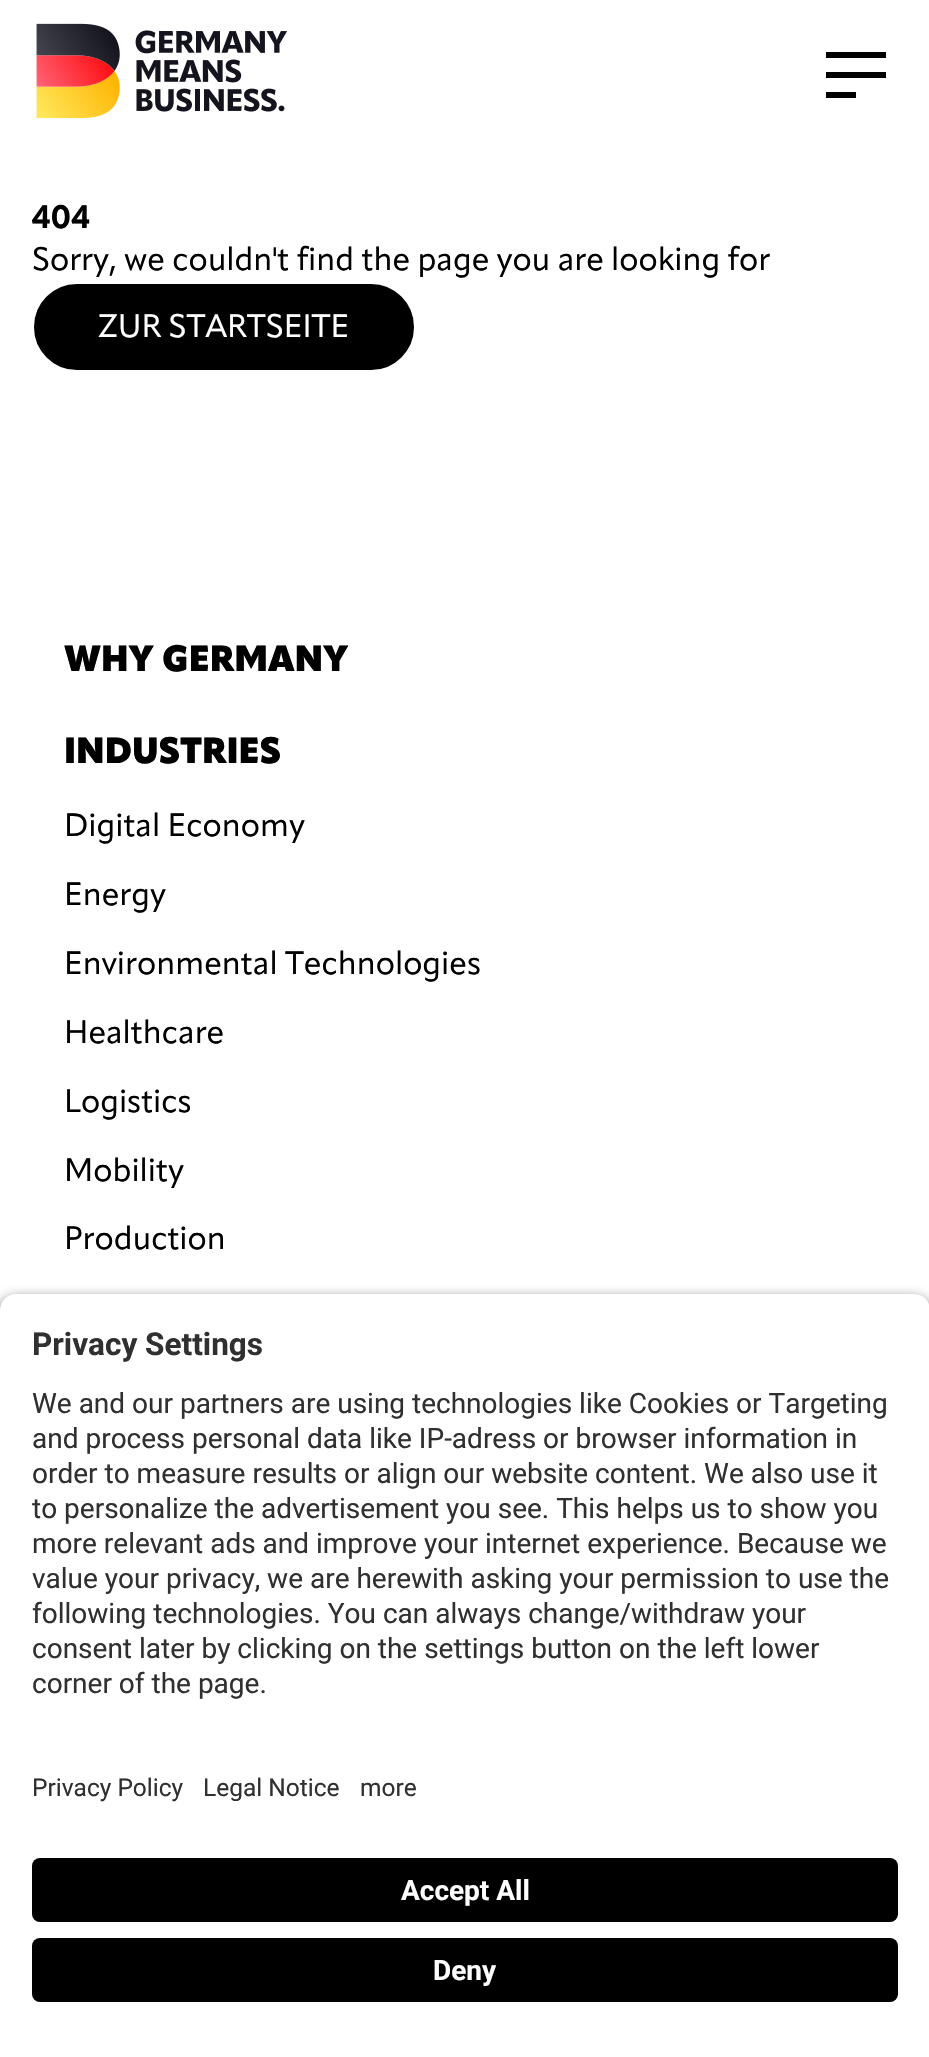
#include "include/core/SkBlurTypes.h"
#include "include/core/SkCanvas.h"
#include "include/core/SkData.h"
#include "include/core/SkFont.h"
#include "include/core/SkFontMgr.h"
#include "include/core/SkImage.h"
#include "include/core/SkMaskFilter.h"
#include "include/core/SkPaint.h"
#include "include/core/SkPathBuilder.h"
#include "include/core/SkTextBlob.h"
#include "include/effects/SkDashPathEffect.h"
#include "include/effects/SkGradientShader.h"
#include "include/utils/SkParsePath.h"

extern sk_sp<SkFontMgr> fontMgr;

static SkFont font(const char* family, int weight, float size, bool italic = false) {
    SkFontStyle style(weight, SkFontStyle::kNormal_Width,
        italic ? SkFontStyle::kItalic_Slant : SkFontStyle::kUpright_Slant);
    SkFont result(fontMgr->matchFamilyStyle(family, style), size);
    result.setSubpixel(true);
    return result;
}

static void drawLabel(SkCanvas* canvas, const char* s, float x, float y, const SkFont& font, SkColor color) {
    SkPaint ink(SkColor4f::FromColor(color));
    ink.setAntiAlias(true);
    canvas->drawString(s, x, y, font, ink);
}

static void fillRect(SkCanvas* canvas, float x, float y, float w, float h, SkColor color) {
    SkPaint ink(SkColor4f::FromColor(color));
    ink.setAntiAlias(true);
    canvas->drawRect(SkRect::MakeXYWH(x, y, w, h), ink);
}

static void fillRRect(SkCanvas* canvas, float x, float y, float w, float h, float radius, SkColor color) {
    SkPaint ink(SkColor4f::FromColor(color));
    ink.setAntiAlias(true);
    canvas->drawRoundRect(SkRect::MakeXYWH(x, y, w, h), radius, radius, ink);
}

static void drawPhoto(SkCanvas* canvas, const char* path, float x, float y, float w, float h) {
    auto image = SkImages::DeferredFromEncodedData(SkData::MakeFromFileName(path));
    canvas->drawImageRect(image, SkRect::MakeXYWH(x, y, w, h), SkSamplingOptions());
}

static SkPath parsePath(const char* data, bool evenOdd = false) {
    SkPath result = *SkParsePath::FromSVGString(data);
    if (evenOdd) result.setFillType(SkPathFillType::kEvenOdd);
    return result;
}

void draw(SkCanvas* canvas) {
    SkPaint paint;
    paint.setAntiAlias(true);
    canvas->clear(0xFFFFFFFF);
    drawPhoto(canvas, "assets/img1.png", 36, 23, 251, 96);
    fillRect(canvas, 826, 72, 60, 6, 0xFF000000);
    fillRect(canvas, 826, 52, 60, 6, 0xFF000000);
    fillRect(canvas, 826, 92, 30, 6, 0xFF000000);
    SkFont font1 = font("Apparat", 700, 32);
    drawLabel(canvas, "404", 32, 228, font1, 0xFF000000);
    SkFont font2 = font("Apparat", 400, 32);
    drawLabel(canvas, "Sorry, we couldn't find the page you are looking for", 32, 270, font2, 0xFF000000);
    paint.setColor(0xFF000000);
    canvas->drawRoundRect(SkRect::MakeXYWH(33, 283, 382, 88), 44, 44, paint);
    paint.setStroke(true);
    paint.setStrokeWidth(2);
    paint.setColor(0xFFFFFFFF);
    canvas->drawRoundRect(SkRect::MakeXYWH(33, 283, 382, 88), 44, 44, paint);
    drawLabel(canvas, "ZUR STARTSEITE", 98, 337, font2, 0xFFFFFFFF);
    SkFont font3 = font("Apparat", 900, 36);
    drawLabel(canvas, "WHY GERMANY", 64, 671, font3, 0xFF000000);
    drawLabel(canvas, "INDUSTRIES", 64, 763, font3, 0xFF000000);
    drawLabel(canvas, "Digital Economy", 64, 836, font2, 0xFF000000);
    drawLabel(canvas, "Energy", 64, 905, font2, 0xFF000000);
    drawLabel(canvas, "Environmental Technologies", 64, 974, font2, 0xFF000000);
    drawLabel(canvas, "Healthcare", 64, 1043, font2, 0xFF000000);
    drawLabel(canvas, "Logistics", 64, 1112, font2, 0xFF000000);
    drawLabel(canvas, "Mobility", 64, 1181, font2, 0xFF000000);
    drawLabel(canvas, "Production", 64, 1249, font2, 0xFF000000);
    paint.setStroke(false);
    paint.setColor(0xCC000000);
    paint.setMaskFilter(SkMaskFilter::MakeBlur(kNormal_SkBlurStyle, 7));
    canvas->drawRoundRect(SkRect::MakeXYWH(0, 1300, 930, 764), 16, 16, paint);
    paint.setMaskFilter(nullptr);
    paint.setColor(0xFFFFFFFF);
    canvas->drawPath(parsePath("M16 1294H914C923 1294 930 1301 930 1310V1742H0V1310C0 1301 7 1294 16 1294Z"), paint);
    SkFont font4 = font("Roboto", 700, 31.5f);
    drawLabel(canvas, "Privacy Settings", 32, 1355, font4, 0xFF303030);
    SkFont font5 = font("Roboto", 400, 28);
    drawLabel(canvas, "We and our partners are using technologies like Cookies or Targeting", 32, 1413, font5, 0xFF303030);
    drawLabel(canvas, "and process personal data like IP-adress or browser information in", 32, 1448, font5, 0xFF303030);
    drawLabel(canvas, "order to measure results or align our website content. We also use it", 32, 1483, font5, 0xFF303030);
    drawLabel(canvas, "to personalize the advertisement you see. This helps us to show you", 32, 1518, font5, 0xFF303030);
    drawLabel(canvas, "more relevant ads and improve your internet experience. Because we", 32, 1553, font5, 0xFF303030);
    drawLabel(canvas, "value your privacy, we are herewith asking your permission to use the", 32, 1588, font5, 0xFF303030);
    drawLabel(canvas, "following technologies. You can always change/withdraw your", 32, 1623, font5, 0xFF303030);
    drawLabel(canvas, "consent later by clicking on the settings button on the left lower", 32, 1658, font5, 0xFF303030);
    drawLabel(canvas, "corner of the page.", 32, 1693, font5, 0xFF303030);
    fillRect(canvas, 0, 1742, 929, 315, 0xFFFFFFFF);
    SkFont font6 = font("Roboto", 400, 24.5f);
    drawLabel(canvas, "Privacy Policy", 32, 1796, font6, 0xFF303030);
    drawLabel(canvas, "Legal Notice", 203, 1796, font6, 0xFF303030);
    drawLabel(canvas, "more", 360, 1796, font6, 0xFF303030);
    fillRRect(canvas, 32, 1858, 866, 64, 8, 0xFF000000);
    SkFont font7 = font("Roboto", 700, 28);
    drawLabel(canvas, "Accept All", 401, 1900, font7, 0xFFFFFFFF);
    fillRRect(canvas, 32, 1938, 866, 64, 8, 0xFF000000);
    drawLabel(canvas, "Deny", 433, 1980, font7, 0xFFFFFFFF);
}
